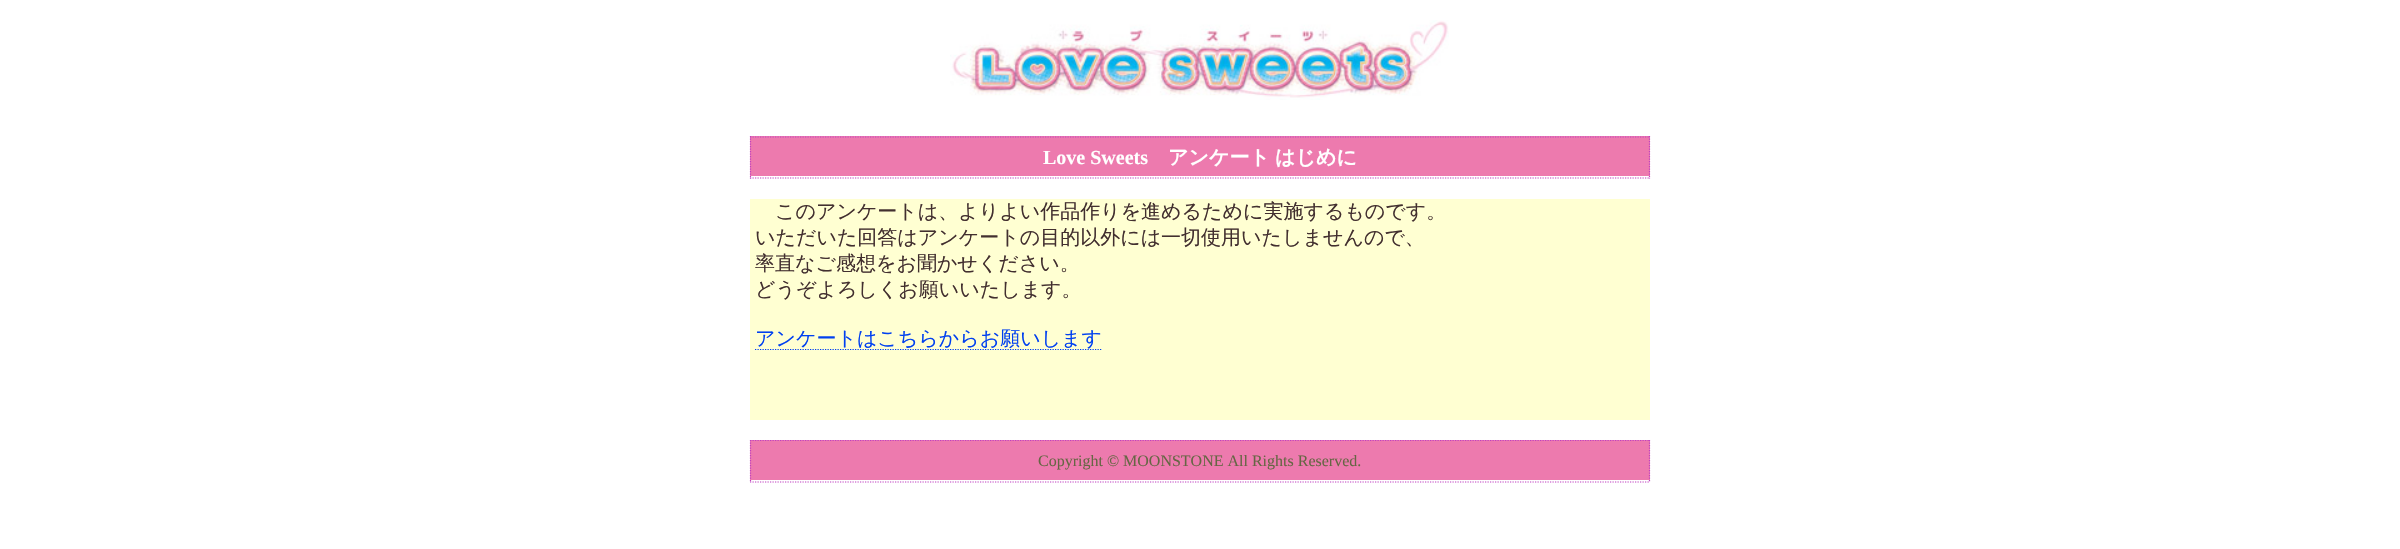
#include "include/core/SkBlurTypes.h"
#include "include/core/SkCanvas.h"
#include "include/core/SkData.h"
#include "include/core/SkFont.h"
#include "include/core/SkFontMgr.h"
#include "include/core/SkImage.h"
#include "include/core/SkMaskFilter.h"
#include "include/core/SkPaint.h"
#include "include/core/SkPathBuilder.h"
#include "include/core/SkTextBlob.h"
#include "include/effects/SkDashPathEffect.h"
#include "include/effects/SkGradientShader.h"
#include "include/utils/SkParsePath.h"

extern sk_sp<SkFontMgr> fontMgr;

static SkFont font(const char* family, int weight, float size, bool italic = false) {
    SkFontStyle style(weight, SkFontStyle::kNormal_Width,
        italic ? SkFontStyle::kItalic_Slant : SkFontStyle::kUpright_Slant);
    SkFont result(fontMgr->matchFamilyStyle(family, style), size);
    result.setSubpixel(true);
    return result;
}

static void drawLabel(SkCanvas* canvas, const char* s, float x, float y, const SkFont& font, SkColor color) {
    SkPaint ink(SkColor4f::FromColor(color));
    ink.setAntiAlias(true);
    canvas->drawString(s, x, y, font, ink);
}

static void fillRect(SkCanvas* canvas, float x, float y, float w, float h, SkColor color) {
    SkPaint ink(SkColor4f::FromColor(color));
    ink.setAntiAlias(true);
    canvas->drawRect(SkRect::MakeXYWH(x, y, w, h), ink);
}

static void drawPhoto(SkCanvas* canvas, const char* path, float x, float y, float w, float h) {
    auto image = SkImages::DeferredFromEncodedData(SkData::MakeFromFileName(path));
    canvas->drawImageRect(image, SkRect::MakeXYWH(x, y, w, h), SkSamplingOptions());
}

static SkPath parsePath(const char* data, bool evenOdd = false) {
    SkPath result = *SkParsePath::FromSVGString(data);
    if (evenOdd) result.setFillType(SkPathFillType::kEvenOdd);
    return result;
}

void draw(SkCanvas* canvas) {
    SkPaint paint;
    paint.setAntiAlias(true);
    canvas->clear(0xFFFFFFFF);
    drawPhoto(canvas, "assets/img1.png", 950, 20, 499, 80);
    fillRect(canvas, 750, 136, 900, 40, 0xFFED7AAE);
    paint.setStroke(true);
    paint.setStrokeWidth(1.2f);
    paint.setColor(0xFFC040C0);
    paint.setPathEffect(SkDashPathEffect::Make({{1.25f, 1.25f}}, 0));
    canvas->drawPath(parsePath("M750 137H1650"), paint);
    paint.setPathEffect(nullptr);
    paint.setPathEffect(SkDashPathEffect::Make({{1.25f, 1.25f}}, 0));
    canvas->drawPath(parsePath("M1649.5 136V179"), paint);
    paint.setPathEffect(nullptr);
    paint.setPathEffect(SkDashPathEffect::Make({{1.25f, 1.25f}}, 0));
    canvas->drawPath(parsePath("M750 178H1650"), paint);
    paint.setPathEffect(nullptr);
    paint.setPathEffect(SkDashPathEffect::Make({{1.25f, 1.25f}}, 0));
    canvas->drawPath(parsePath("M750.5 136V179"), paint);
    paint.setPathEffect(nullptr);
    SkFont font1 = font("Liberation Serif", 700, 20);
    drawLabel(canvas, "Love Sweets", 1043, 164, font1, 0xFFFFFFFF);
    SkFont font2 = font("WenQuanYi Zen Hei", 700, 20);
    drawLabel(canvas, "アンケート", 1168, 164, font2, 0xFFFFFFFF);
    drawLabel(canvas, "はじめに", 1275, 164, font2, 0xFFFFFFFF);
    fillRect(canvas, 750, 199, 900, 221, 0xFFFFFFD2);
    SkFont font3 = font("WenQuanYi Zen Hei", 500, 20);
    drawLabel(canvas, "このアンケートは、よりよい作品作りを進めるために実施するものです。", 775, 218, font3, 0xFF422F2F);
    drawLabel(canvas, "いただいた回答はアンケートの目的以外には一切使用いたしませんので、", 755, 244, font3, 0xFF422F2F);
    drawLabel(canvas, "率直なご感想をお聞かせください。", 755, 270, font3, 0xFF422F2F);
    drawLabel(canvas, "どうぞよろしくお願いいたします。", 755, 296, font3, 0xFF422F2F);
    paint.setColor(0xFF0040F0);
    paint.setPathEffect(SkDashPathEffect::Make({{1.25f, 1.25f}}, 0));
    canvas->drawPath(parsePath("M755 349.5H1102.5"), paint);
    paint.setPathEffect(nullptr);
    drawLabel(canvas, "アンケートはこちらからお願いします", 755, 345, font3, 0xFF0040F0);
    fillRect(canvas, 750, 440, 900, 40, 0xFFED7AAE);
    paint.setColor(0xFFC040C0);
    paint.setPathEffect(SkDashPathEffect::Make({{1.25f, 1.25f}}, 0));
    canvas->drawPath(parsePath("M750 440.5H1650"), paint);
    paint.setPathEffect(nullptr);
    paint.setPathEffect(SkDashPathEffect::Make({{1.25f, 1.25f}}, 0));
    canvas->drawPath(parsePath("M1649.5 440V482.5"), paint);
    paint.setPathEffect(nullptr);
    paint.setPathEffect(SkDashPathEffect::Make({{1.25f, 1.25f}}, 0));
    canvas->drawPath(parsePath("M750 482H1650"), paint);
    paint.setPathEffect(nullptr);
    paint.setPathEffect(SkDashPathEffect::Make({{1.25f, 1.25f}}, 0));
    canvas->drawPath(parsePath("M750.5 440V482.5"), paint);
    paint.setPathEffect(nullptr);
    SkFont font4 = font("Liberation Serif", 400, 16);
    drawLabel(canvas, "Copyright © MOONSTONE All Rights Reserved.", 1038, 466, font4, 0xFF666644);
}
